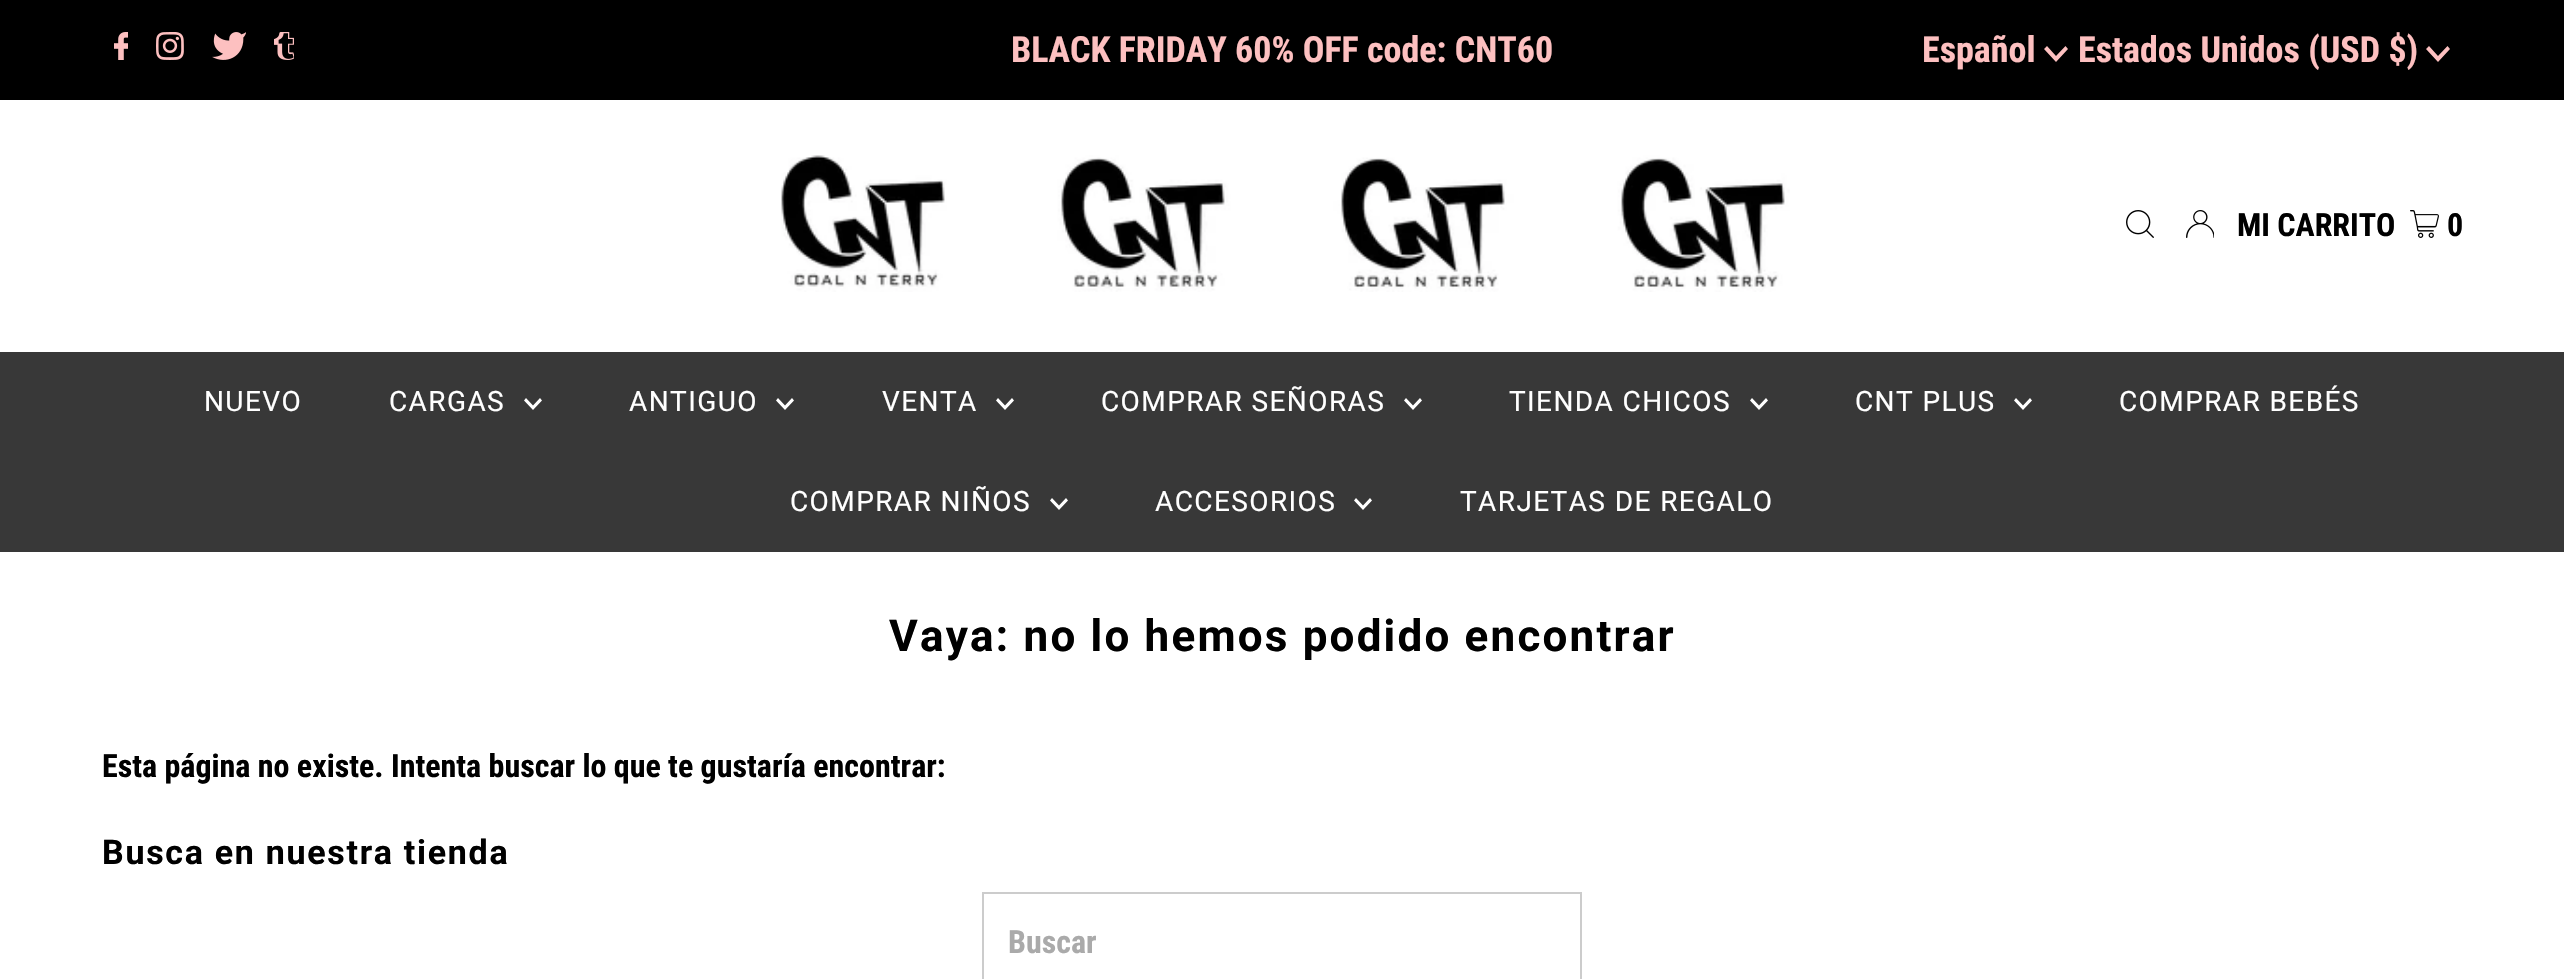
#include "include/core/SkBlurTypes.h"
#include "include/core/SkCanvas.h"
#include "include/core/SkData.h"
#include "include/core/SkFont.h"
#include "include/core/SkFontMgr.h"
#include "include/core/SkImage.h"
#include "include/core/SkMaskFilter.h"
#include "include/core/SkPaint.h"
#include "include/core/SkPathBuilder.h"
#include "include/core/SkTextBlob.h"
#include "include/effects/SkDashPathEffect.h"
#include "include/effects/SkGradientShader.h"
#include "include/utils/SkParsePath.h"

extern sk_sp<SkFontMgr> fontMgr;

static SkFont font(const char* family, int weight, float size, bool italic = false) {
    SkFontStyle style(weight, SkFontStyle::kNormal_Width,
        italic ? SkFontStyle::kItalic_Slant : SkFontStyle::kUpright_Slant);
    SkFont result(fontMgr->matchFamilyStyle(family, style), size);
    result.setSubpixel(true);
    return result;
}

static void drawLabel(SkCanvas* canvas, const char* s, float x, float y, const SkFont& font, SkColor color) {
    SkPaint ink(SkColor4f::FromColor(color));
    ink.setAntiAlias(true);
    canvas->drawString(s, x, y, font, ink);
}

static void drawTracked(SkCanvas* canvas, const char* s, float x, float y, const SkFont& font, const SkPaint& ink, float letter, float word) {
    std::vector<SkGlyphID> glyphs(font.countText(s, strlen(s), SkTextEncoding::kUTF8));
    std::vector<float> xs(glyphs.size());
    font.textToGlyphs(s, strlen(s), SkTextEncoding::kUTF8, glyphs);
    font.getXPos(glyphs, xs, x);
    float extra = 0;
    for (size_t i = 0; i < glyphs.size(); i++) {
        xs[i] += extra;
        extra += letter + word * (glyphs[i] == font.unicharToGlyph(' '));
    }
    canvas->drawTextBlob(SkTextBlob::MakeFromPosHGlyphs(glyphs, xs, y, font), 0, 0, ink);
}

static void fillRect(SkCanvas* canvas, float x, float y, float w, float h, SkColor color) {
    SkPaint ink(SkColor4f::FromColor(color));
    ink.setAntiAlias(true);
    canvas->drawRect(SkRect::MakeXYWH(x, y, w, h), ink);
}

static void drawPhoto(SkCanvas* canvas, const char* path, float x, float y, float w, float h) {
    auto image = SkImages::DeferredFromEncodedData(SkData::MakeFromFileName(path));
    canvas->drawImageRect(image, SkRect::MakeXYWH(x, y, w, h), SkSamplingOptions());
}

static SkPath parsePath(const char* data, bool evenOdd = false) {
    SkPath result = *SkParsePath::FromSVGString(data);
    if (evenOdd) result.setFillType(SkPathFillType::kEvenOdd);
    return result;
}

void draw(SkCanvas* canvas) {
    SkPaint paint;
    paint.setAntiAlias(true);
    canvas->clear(0xFFFFFFFF);
    fillRect(canvas, 0, 0, 2564, 100, 0xFF000000);
    drawPhoto(canvas, "assets/img1.png", 114, 32, 14, 28);
    drawPhoto(canvas, "assets/img2.png", 156, 32, 28, 28);
    drawPhoto(canvas, "assets/img3.png", 212, 32, 34, 28);
    drawPhoto(canvas, "assets/img4.png", 274, 32, 20, 28);
    SkFont font1 = font("Roboto Condensed", 700, 36);
    drawLabel(canvas, "BLACK FRIDAY 60% OFF code: CNT60", 1011, 62, font1, 0xFFFDC0C0);
    drawLabel(canvas, "Español", 1922, 62, font1, 0xFFFDC0C0);
    paint.setColor(0xFFFDC0C0);
    canvas->drawPath(parsePath("M2065.5 46L2056 56L2047 46L2044 49L2056 62L2068 49Z"), paint);
    drawLabel(canvas, "Estados Unidos (USD $)", 2078, 62, font1, 0xFFFDC0C0);
    canvas->drawPath(parsePath("M2447.5 46L2438 56L2429 46L2426 49L2438 62L2450 49Z"), paint);
    drawPhoto(canvas, "assets/img5.png", 781, 155, 1009, 137);
    drawPhoto(canvas, "assets/img6.png", 2126, 210, 28, 28);
    drawPhoto(canvas, "assets/img7.png", 2186, 210, 28, 28);
    SkFont font2 = font("Roboto Condensed", 700, 32);
    drawLabel(canvas, "MI CARRITO", 2237, 236, font2, 0xFF000000);
    drawPhoto(canvas, "assets/img8.png", 2410, 210, 29, 28);
    drawLabel(canvas, "0", 2447, 236, font2, 0xFF000000);
    fillRect(canvas, 0, 352, 2564, 200, 0xFF383838);
    SkFont font3 = font("Roboto", 400, 28);
    paint.setColor(0xFFFFFFFF);
    drawTracked(canvas, "NUEVO", 204, 411, font3, paint, 1.4f, 0);
    drawTracked(canvas, "CARGAS", 389, 411, font3, paint, 1.4f, 0);
    canvas->drawPath(parsePath("M540 398L533 405.5L526 398L524 400.5L533 410L542 400.5Z"), paint);
    drawTracked(canvas, "ANTIGUO", 629, 411, font3, paint, 1.4f, 0);
    canvas->drawPath(parsePath("M792 398L785 405.5L778 398L776 400.5L785 410L794 400.5Z"), paint);
    drawTracked(canvas, "VENTA", 882, 411, font3, paint, 1.4f, 0);
    canvas->drawPath(parsePath("M1012 398L1005 405.5L998 398L996 400.5L1005 410L1014 400.5Z"), paint);
    drawTracked(canvas, "COMPRAR SEÑORAS", 1101, 411, font3, paint, 1.4f, 0);
    canvas->drawPath(parsePath("M1420 398L1413 405.5L1406 398L1404 400.5L1413 410L1422 400.5Z"), paint);
    drawTracked(canvas, "TIENDA CHICOS", 1509, 411, font3, paint, 1.4f, 0);
    canvas->drawPath(parsePath("M1766 398L1759 405.5L1752 398L1750 400.5L1759 410L1768 400.5Z"), paint);
    drawTracked(canvas, "CNT PLUS", 1855, 411, font3, paint, 1.4f, 0);
    canvas->drawPath(parsePath("M2030 398L2023 405.5L2016 398L2014 400.5L2023 410L2032 400.5Z"), paint);
    drawTracked(canvas, "COMPRAR BEBÉS", 2119, 411, font3, paint, 1.4f, 0);
    drawTracked(canvas, "COMPRAR NIÑOS", 790, 511, font3, paint, 1.4f, 0);
    canvas->drawPath(parsePath("M1066 498L1059 505.5L1052 498L1050 500.5L1059 510L1068 500.5Z"), paint);
    drawTracked(canvas, "ACCESORIOS", 1155, 511, font3, paint, 1.4f, 0);
    canvas->drawPath(parsePath("M1370 498L1363 505.5L1356 498L1354 500.5L1363 510L1372 500.5Z"), paint);
    drawTracked(canvas, "TARJETAS DE REGALO", 1460, 511, font3, paint, 1.4f, 0);
    SkFont font4 = font("Roboto", 700, 44);
    paint.setColor(0xFF000000);
    drawTracked(canvas, "Vaya: no lo hemos podido encontrar", 889, 651, font4, paint, 2.2f, 0);
    drawLabel(canvas, "Esta página no existe. Intenta buscar lo que te gustaría encontrar:", 102, 777, font2, 0xFF000000);
    SkFont font5 = font("Roboto", 700, 34);
    drawTracked(canvas, "Busca en nuestra tienda", 102, 864, font5, paint, 1.7f, 0);
    paint.setStroke(true);
    paint.setStrokeWidth(2);
    paint.setColor(0xFFCCCCCC);
    canvas->drawRect(SkRect::MakeXYWH(983, 893, 598, 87), paint);
    drawLabel(canvas, "Buscar", 1008, 953, font2, 0xFFAAAAAA);
}
